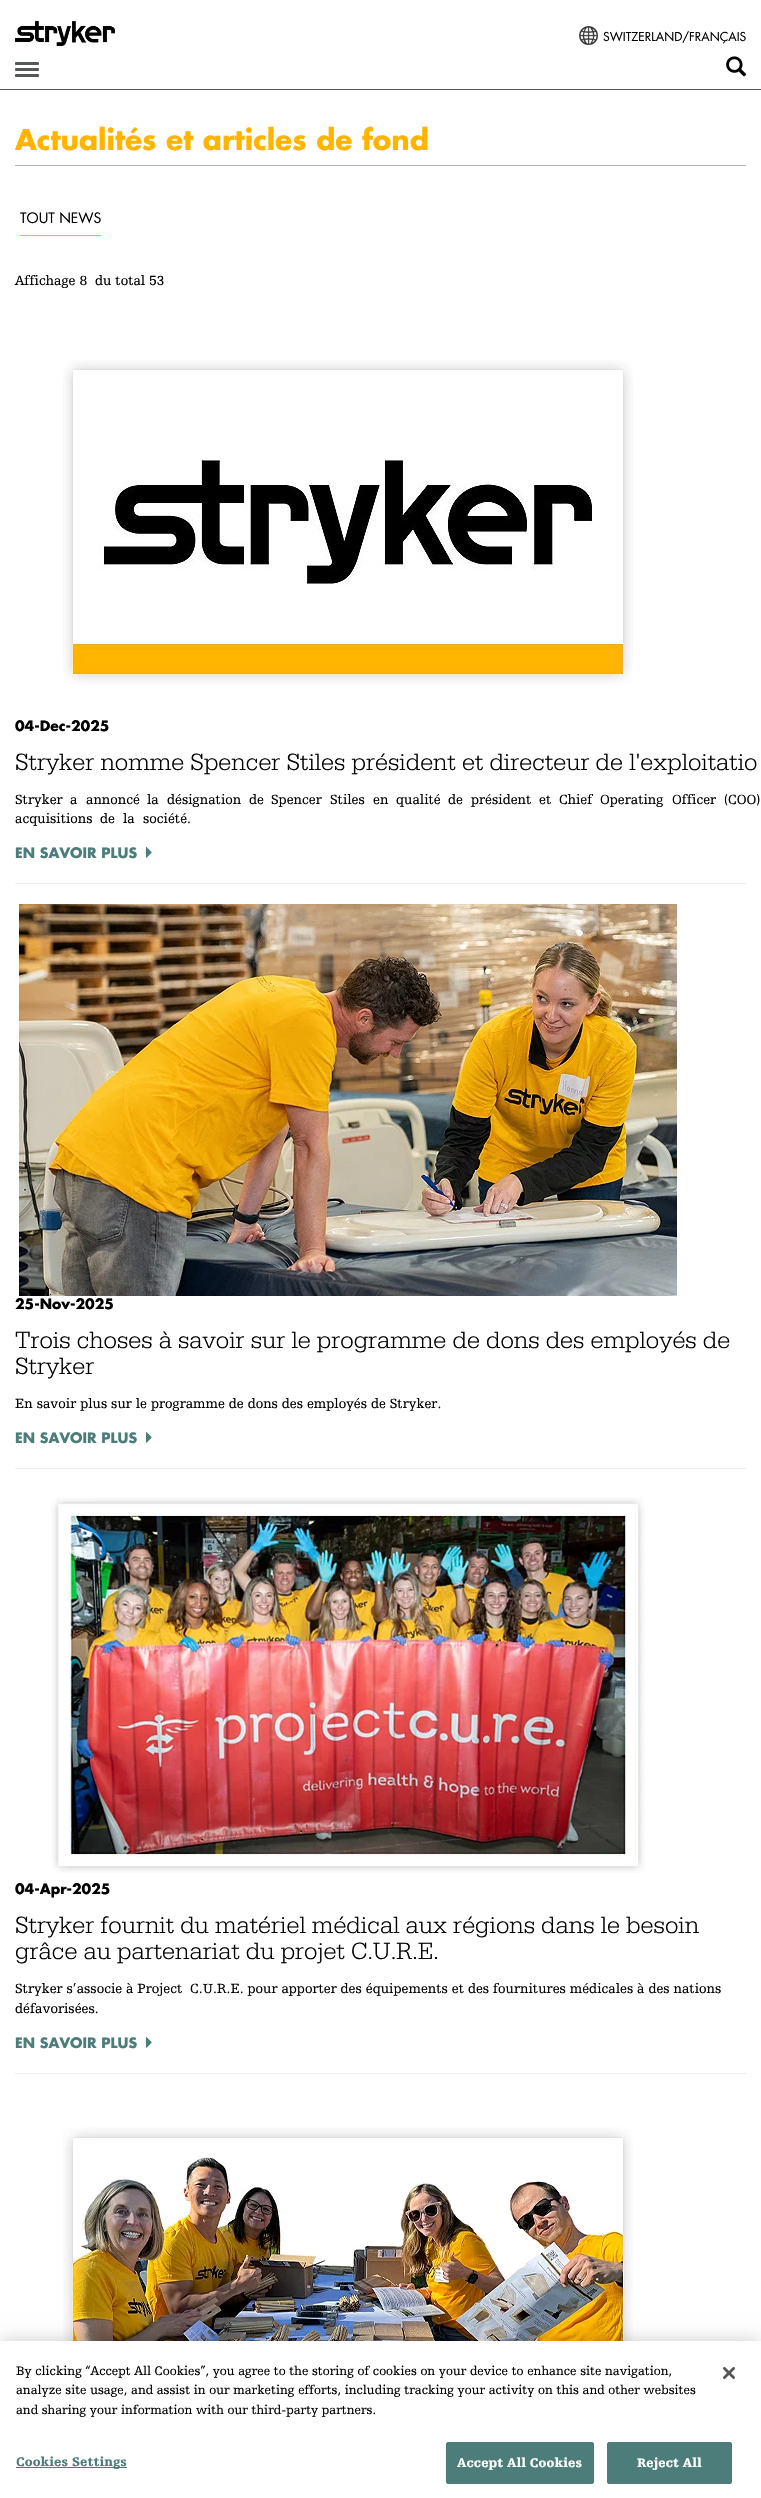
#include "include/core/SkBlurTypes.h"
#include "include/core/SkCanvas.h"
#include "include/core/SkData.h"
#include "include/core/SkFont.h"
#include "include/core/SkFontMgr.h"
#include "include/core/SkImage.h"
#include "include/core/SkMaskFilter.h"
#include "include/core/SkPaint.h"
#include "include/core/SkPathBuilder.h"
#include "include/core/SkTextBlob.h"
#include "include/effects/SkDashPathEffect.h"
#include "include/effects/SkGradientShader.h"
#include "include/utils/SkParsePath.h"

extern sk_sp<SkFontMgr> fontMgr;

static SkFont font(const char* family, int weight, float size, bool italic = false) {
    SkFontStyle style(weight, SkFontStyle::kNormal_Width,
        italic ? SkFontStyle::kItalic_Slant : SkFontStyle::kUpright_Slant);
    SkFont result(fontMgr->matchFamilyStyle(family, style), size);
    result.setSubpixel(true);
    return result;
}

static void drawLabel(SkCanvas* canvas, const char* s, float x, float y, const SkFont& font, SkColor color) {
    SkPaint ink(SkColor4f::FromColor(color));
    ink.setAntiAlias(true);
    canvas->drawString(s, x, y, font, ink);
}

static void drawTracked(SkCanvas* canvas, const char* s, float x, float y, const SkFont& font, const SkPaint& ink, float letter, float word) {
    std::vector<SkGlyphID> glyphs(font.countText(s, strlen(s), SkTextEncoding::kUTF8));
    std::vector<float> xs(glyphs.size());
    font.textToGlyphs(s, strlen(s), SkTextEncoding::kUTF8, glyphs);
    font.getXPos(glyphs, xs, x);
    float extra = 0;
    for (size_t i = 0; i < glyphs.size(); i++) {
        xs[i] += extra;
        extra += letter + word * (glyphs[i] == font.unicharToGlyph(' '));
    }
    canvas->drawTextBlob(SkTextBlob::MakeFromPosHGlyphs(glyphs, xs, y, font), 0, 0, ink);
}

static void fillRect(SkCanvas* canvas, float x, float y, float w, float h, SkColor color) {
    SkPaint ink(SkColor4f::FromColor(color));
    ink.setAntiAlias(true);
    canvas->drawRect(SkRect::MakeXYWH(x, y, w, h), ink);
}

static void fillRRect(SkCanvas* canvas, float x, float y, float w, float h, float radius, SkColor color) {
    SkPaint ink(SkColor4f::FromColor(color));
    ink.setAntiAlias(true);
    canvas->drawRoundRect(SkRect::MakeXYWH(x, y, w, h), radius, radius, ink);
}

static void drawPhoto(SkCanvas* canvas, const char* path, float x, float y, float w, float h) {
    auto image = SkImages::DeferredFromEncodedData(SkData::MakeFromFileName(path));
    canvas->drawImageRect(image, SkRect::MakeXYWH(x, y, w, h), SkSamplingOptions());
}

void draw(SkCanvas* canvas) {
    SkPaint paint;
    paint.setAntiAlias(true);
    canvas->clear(0xFFFFFFFF);
    fillRect(canvas, 0, 89, 761, 1, 0xFF545857);
    drawPhoto(canvas, "assets/img1.png", 15, 21, 100, 25);
    drawPhoto(canvas, "assets/img2.png", 579, 26, 19, 19);
    SkFont font1 = font("Futura", 400, 12);
    drawLabel(canvas, "SWITZERLAND/FRANÇAIS", 603, 41, font1, 0xFF000000);
    fillRRect(canvas, 15, 62, 24, 3, 1, 0xFF545857);
    fillRRect(canvas, 15, 68, 24, 3, 1, 0xFF545857);
    fillRRect(canvas, 15, 74, 24, 3, 1, 0xFF545857);
    drawPhoto(canvas, "assets/img3.png", 726, 56, 21, 21);
    fillRect(canvas, 15, 165, 731, 1, 0xFFB2B4AE);
    SkFont font2 = font("Futura", 700, 28);
    drawLabel(canvas, "Actualités et articles de fond", 15, 150, font2, 0xFFFFB500);
    fillRect(canvas, 20, 235, 81, 1, 0xFFFFB500);
    SkFont font3 = font("Futura", 400, 14);
    drawLabel(canvas, "TOUT NEWS", 20, 223, font3, 0xFF000000);
    SkFont font4 = font("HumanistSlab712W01", 400, 14);
    drawLabel(canvas, "Affichage 8", 15, 285, font4, 0xFF000000);
    drawLabel(canvas, "du total 53", 95, 285, font4, 0xFF000000);
    fillRect(canvas, 15, 883, 731, 1, 0xFFEDEEEC);
    drawPhoto(canvas, "assets/img4.png", 63, 360, 570, 324);
    SkFont font5 = font("Futura", 700, 14);
    drawLabel(canvas, "04-Dec-2025", 15, 731, font5, 0xFF000000);
    SkFont font6 = font("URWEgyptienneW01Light", 300, 24.5f);
    drawLabel(canvas, "Stryker nomme Spencer Stiles président et directeur de l'exploitatio", 15, 770, font6, 0xFF000000);
    drawLabel(canvas, "Stryker", 15, 804, font4, 0xFF000000);
    drawLabel(canvas, "a", 70, 804, font4, 0xFF000000);
    drawLabel(canvas, "annoncé", 86, 804, font4, 0xFF000000);
    drawLabel(canvas, "la", 147, 804, font4, 0xFF000000);
    drawLabel(canvas, "désignation", 167, 804, font4, 0xFF000000);
    drawLabel(canvas, "de", 249, 804, font4, 0xFF000000);
    drawLabel(canvas, "Spencer", 271, 804, font4, 0xFF000000);
    drawLabel(canvas, "Stiles", 330, 804, font4, 0xFF000000);
    drawLabel(canvas, "en", 373, 804, font4, 0xFF000000);
    drawLabel(canvas, "qualité", 396, 804, font4, 0xFF000000);
    drawLabel(canvas, "de", 448, 804, font4, 0xFF000000);
    drawLabel(canvas, "président", 471, 804, font4, 0xFF000000);
    drawLabel(canvas, "et", 539, 804, font4, 0xFF000000);
    drawLabel(canvas, "Chief", 559, 804, font4, 0xFF000000);
    drawLabel(canvas, "Operating", 600, 804, font4, 0xFF000000);
    drawLabel(canvas, "Officer", 672, 804, font4, 0xFF000000);
    drawLabel(canvas, "(COO)", 724, 804, font4, 0xFF000000);
    drawLabel(canvas, "acquisitions", 15, 823, font4, 0xFF000000);
    drawLabel(canvas, "de", 100, 823, font4, 0xFF000000);
    drawLabel(canvas, "la", 123, 823, font4, 0xFF000000);
    drawLabel(canvas, "société.", 143, 823, font4, 0xFF000000);
    drawLabel(canvas, "EN SAVOIR PLUS", 15, 858, font5, 0xFF4C7D7A);
    drawPhoto(canvas, "assets/img5.png", 145, 847, 7, 11);
    fillRect(canvas, 15, 1468, 731, 1, 0xFFEDEEEC);
    drawPhoto(canvas, "assets/img6.png", 15, 904, 664, 392);
    drawLabel(canvas, "25-Nov-2025", 15, 1309, font5, 0xFF000000);
    drawLabel(canvas, "Trois choses à savoir sur le programme de dons des employés de", 15, 1348, font6, 0xFF000000);
    drawLabel(canvas, "Stryker", 15, 1374, font6, 0xFF000000);
    drawLabel(canvas, "En savoir plus sur le programme de dons des employés de Stryker.", 15, 1408, font4, 0xFF000000);
    drawLabel(canvas, "EN SAVOIR PLUS", 15, 1443, font5, 0xFF4C7D7A);
    drawPhoto(canvas, "assets/img5.png", 145, 1432, 7, 11);
    fillRect(canvas, 15, 2073, 731, 1, 0xFFEDEEEC);
    drawPhoto(canvas, "assets/img7.png", 51, 1497, 594, 376);
    drawLabel(canvas, "04-Apr-2025", 15, 1894, font5, 0xFF000000);
    drawLabel(canvas, "Stryker fournit du matériel médical aux régions dans le besoin", 15, 1933, font6, 0xFF000000);
    drawLabel(canvas, "grâce au partenariat du projet C.U.R.E.", 15, 1959, font6, 0xFF000000);
    drawLabel(canvas, "Stryker s’associe à Project", 15, 1993, font4, 0xFF000000);
    drawLabel(canvas, "C.U.R.E. pour apporter des équipements et des fournitures médicales à des nations", 190, 1993, font4, 0xFF000000);
    drawLabel(canvas, "défavorisées.", 15, 2013, font4, 0xFF000000);
    drawLabel(canvas, "EN SAVOIR PLUS", 15, 2048, font5, 0xFF4C7D7A);
    drawPhoto(canvas, "assets/img5.png", 145, 2037, 7, 11);
    drawPhoto(canvas, "assets/img8.png", 63, 2127, 570, 214);
    paint.setColor(0x33000000);
    paint.setMaskFilter(SkMaskFilter::MakeBlur(kNormal_SkBlurStyle, 9));
    canvas->drawRect(SkRect::MakeXYWH(0, 2341, 761, 157), paint);
    paint.setMaskFilter(nullptr);
    fillRect(canvas, 0, 2341, 761, 157, 0xFFFFFFFF);
    SkFont font7 = font("HumanistSlab712W01", 400, 13);
    drawLabel(canvas, "By clicking “Accept All Cookies”, you agree to the storing of cookies on your device to enhance site navigation,", 16, 2375, font7, 0xFF000000);
    drawLabel(canvas, "analyze site usage, and assist in our marketing efforts, including tracking your activity on this and other websites", 16, 2394, font7, 0xFF000000);
    drawLabel(canvas, "and sharing your information with our third-party partners.", 16, 2414, font7, 0xFF000000);
    fillRect(canvas, 16, 2467, 111, 1, 0xFF4C7D7A);
    SkFont font8 = font("HumanistSlab712W01", 900, 13);
    paint.setColor(0xFF4C7D7A);
    drawTracked(canvas, "Cookies Settings", 16, 2466, font8, paint, 0.1f, 0);
    canvas->drawRoundRect(SkRect::MakeXYWH(446.5f, 2442.5f, 147, 41), 1.5f, 1.5f, paint);
    paint.setStroke(true);
    paint.setStrokeWidth(1);
    canvas->drawRoundRect(SkRect::MakeXYWH(446.5f, 2442.5f, 147, 41), 1.5f, 1.5f, paint);
    paint.setStroke(false);
    paint.setColor(0xFFFFFFFF);
    drawTracked(canvas, "Accept All Cookies", 457, 2467, font8, paint, 0.1f, 0);
    paint.setColor(0xFF4C7D7A);
    canvas->drawRoundRect(SkRect::MakeXYWH(607.5f, 2442.5f, 124, 41), 1.5f, 1.5f, paint);
    paint.setStroke(true);
    canvas->drawRoundRect(SkRect::MakeXYWH(607.5f, 2442.5f, 124, 41), 1.5f, 1.5f, paint);
    paint.setStroke(false);
    paint.setColor(0xFFFFFFFF);
    drawTracked(canvas, "Reject All", 637, 2467, font8, paint, 0.1f, 0);
    drawPhoto(canvas, "assets/img9.png", 723, 2367, 12, 12);
}
